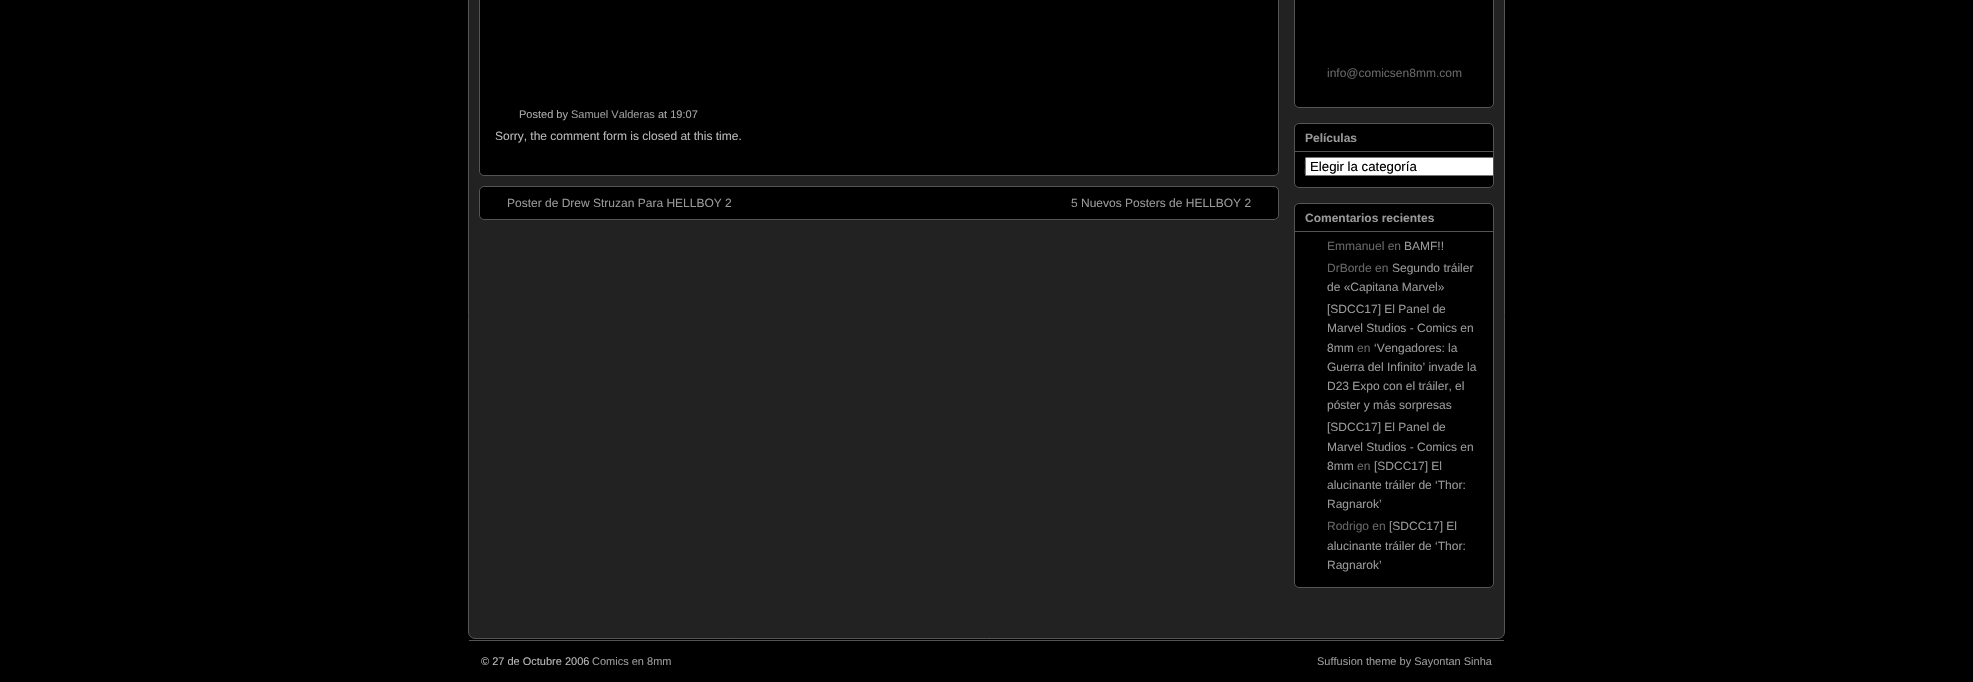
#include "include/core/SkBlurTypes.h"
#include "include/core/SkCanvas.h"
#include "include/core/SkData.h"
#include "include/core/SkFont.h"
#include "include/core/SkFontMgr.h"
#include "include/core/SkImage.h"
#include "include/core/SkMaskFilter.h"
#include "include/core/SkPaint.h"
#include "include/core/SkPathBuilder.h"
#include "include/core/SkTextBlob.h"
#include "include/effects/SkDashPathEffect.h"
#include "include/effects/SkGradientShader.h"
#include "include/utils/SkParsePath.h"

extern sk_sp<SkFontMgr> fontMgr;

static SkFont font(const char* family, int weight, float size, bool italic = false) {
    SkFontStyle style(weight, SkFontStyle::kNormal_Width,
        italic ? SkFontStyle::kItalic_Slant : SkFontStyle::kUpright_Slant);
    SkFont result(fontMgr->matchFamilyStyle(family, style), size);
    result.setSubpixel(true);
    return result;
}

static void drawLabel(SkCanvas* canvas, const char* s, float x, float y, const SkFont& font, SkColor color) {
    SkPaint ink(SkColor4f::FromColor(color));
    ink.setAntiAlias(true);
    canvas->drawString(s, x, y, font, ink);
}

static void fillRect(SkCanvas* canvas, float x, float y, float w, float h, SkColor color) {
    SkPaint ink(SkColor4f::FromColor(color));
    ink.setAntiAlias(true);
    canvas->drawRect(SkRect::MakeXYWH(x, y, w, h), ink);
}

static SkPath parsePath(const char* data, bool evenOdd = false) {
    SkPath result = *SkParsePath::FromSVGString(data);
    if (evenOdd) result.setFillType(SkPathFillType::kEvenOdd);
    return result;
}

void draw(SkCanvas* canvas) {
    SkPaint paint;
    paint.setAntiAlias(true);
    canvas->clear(0xFF000000);
    paint.setColor(0xFF222222);
    canvas->drawRoundRect(SkRect::MakeXYWH(468.5f, -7.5f, 1036, 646), 6.5f, 6.5f, paint);
    paint.setStroke(true);
    paint.setStrokeWidth(1);
    paint.setColor(0xFF555555);
    canvas->drawRoundRect(SkRect::MakeXYWH(468.5f, -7.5f, 1036, 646), 6.5f, 6.5f, paint);
    paint.setStroke(false);
    paint.setColor(0xFF000000);
    canvas->drawRoundRect(SkRect::MakeXYWH(479.5f, -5.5f, 799, 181), 4.5f, 4.5f, paint);
    paint.setStroke(true);
    paint.setColor(0xFF555555);
    canvas->drawRoundRect(SkRect::MakeXYWH(479.5f, -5.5f, 799, 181), 4.5f, 4.5f, paint);
    SkFont font1 = font("Liberation Sans", 400, 11);
    drawLabel(canvas, "Posted by", 519, 118, font1, 0xFFAAAAAA);
    drawLabel(canvas, "Samuel Valderas", 571, 118, font1, 0xFF999999);
    drawLabel(canvas, "at 19:07", 658, 118, font1, 0xFFAAAAAA);
    SkFont font2 = font("Liberation Sans", 400, 12);
    drawLabel(canvas, "Sorry, the comment form is closed at this time.", 495, 140, font2, 0xFFB8B8B8);
    paint.setStroke(false);
    paint.setColor(0xFF000000);
    canvas->drawRoundRect(SkRect::MakeXYWH(479.5f, 186.5f, 799, 33), 4.5f, 4.5f, paint);
    paint.setStroke(true);
    paint.setColor(0xFF555555);
    canvas->drawRoundRect(SkRect::MakeXYWH(479.5f, 186.5f, 799, 33), 4.5f, 4.5f, paint);
    drawLabel(canvas, "Poster de Drew Struzan Para HELLBOY 2", 507, 207, font2, 0xFF999999);
    drawLabel(canvas, "5 Nuevos Posters de HELLBOY 2", 1071, 207, font2, 0xFF999999);
    paint.setStroke(false);
    paint.setColor(0xFF000000);
    canvas->drawRoundRect(SkRect::MakeXYWH(1294.5f, -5.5f, 199, 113), 4.5f, 4.5f, paint);
    paint.setStroke(true);
    paint.setColor(0xFF555555);
    canvas->drawRoundRect(SkRect::MakeXYWH(1294.5f, -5.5f, 199, 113), 4.5f, 4.5f, paint);
    drawLabel(canvas, "info@comicsen8mm.com", 1327, 77, font2, 0xFF666666);
    paint.setStroke(false);
    paint.setColor(0xFF000000);
    canvas->drawRoundRect(SkRect::MakeXYWH(1294.5f, 123.5f, 199, 64), 4.5f, 4.5f, paint);
    paint.setStroke(true);
    paint.setColor(0xFF555555);
    canvas->drawRoundRect(SkRect::MakeXYWH(1294.5f, 123.5f, 199, 64), 4.5f, 4.5f, paint);
    fillRect(canvas, 1295, 151, 198, 1, 0xFF555555);
    SkFont font3 = font("Liberation Sans", 700, 12);
    drawLabel(canvas, "Películas", 1305, 142, font3, 0xFF999999);
    paint.setStroke(false);
    paint.setColor(0xFFFFFFFF);
    canvas->drawPath(parsePath("M1307 157H1493V176H1307C1306 176 1305 175 1305 174V159C1305 158 1306 157 1307 157Z"), paint);
    paint.setColor(0xFF767676);
    canvas->drawPath(parsePath("M1307 157C1304 157 1305 165 1305 166C1305 168 1304 175 1306 176H1493V175H1307C1306 175 1306 175 1306 174V159C1306 158 1306 158 1307 158H1493V157Z"), paint);
    SkFont font4 = font("Liberation Sans", 400, 13.25f);
    drawLabel(canvas, "Elegir la categoría", 1310, 171, font4, 0xFF000000);
    paint.setColor(0xFF000000);
    canvas->drawRoundRect(SkRect::MakeXYWH(1294.5f, 203.5f, 199, 384), 4.5f, 4.5f, paint);
    paint.setStroke(true);
    paint.setColor(0xFF555555);
    canvas->drawRoundRect(SkRect::MakeXYWH(1294.5f, 203.5f, 199, 384), 4.5f, 4.5f, paint);
    fillRect(canvas, 1295, 231, 198, 1, 0xFF555555);
    drawLabel(canvas, "Comentarios recientes", 1305, 222, font3, 0xFF999999);
    drawLabel(canvas, "Emmanuel en", 1327, 250, font2, 0xFF666666);
    drawLabel(canvas, "BAMF!!", 1404, 250, font2, 0xFF999999);
    drawLabel(canvas, "DrBorde en", 1327, 272, font2, 0xFF666666);
    drawLabel(canvas, "Segundo tráiler", 1392, 272, font2, 0xFF999999);
    drawLabel(canvas, "de «Capitana Marvel»", 1327, 291, font2, 0xFF999999);
    drawLabel(canvas, "[SDCC17] El Panel de", 1327, 313, font2, 0xFF999999);
    drawLabel(canvas, "Marvel Studios - Comics en", 1327, 332, font2, 0xFF999999);
    drawLabel(canvas, "8mm", 1327, 352, font2, 0xFF999999);
    drawLabel(canvas, "en", 1357, 352, font2, 0xFF666666);
    drawLabel(canvas, "‘Vengadores: la", 1374, 352, font2, 0xFF999999);
    drawLabel(canvas, "Guerra del Infinito’ invade la", 1327, 371, font2, 0xFF999999);
    drawLabel(canvas, "D23 Expo con el tráiler, el", 1327, 390, font2, 0xFF999999);
    drawLabel(canvas, "póster y más sorpresas", 1327, 409, font2, 0xFF999999);
    drawLabel(canvas, "[SDCC17] El Panel de", 1327, 431, font2, 0xFF999999);
    drawLabel(canvas, "Marvel Studios - Comics en", 1327, 451, font2, 0xFF999999);
    drawLabel(canvas, "8mm", 1327, 470, font2, 0xFF999999);
    drawLabel(canvas, "en", 1357, 470, font2, 0xFF666666);
    drawLabel(canvas, "[SDCC17] El", 1374, 470, font2, 0xFF999999);
    drawLabel(canvas, "alucinante tráiler de ‘Thor:", 1327, 489, font2, 0xFF999999);
    drawLabel(canvas, "Ragnarok’", 1327, 508, font2, 0xFF999999);
    drawLabel(canvas, "Rodrigo en", 1327, 530, font2, 0xFF666666);
    drawLabel(canvas, "[SDCC17] El", 1389, 530, font2, 0xFF999999);
    drawLabel(canvas, "alucinante tráiler de ‘Thor:", 1327, 550, font2, 0xFF999999);
    drawLabel(canvas, "Ragnarok’", 1327, 569, font2, 0xFF999999);
    fillRect(canvas, 469, 640, 1035, 1, 0xFF555555);
    drawLabel(canvas, "© 27 de Octubre 2006", 481, 665, font1, 0xFFB8B8B8);
    drawLabel(canvas, "Comics en 8mm", 592, 665, font1, 0xFF999999);
    drawLabel(canvas, "Suffusion theme by Sayontan Sinha", 1317, 665, font1, 0xFF999999);
}
